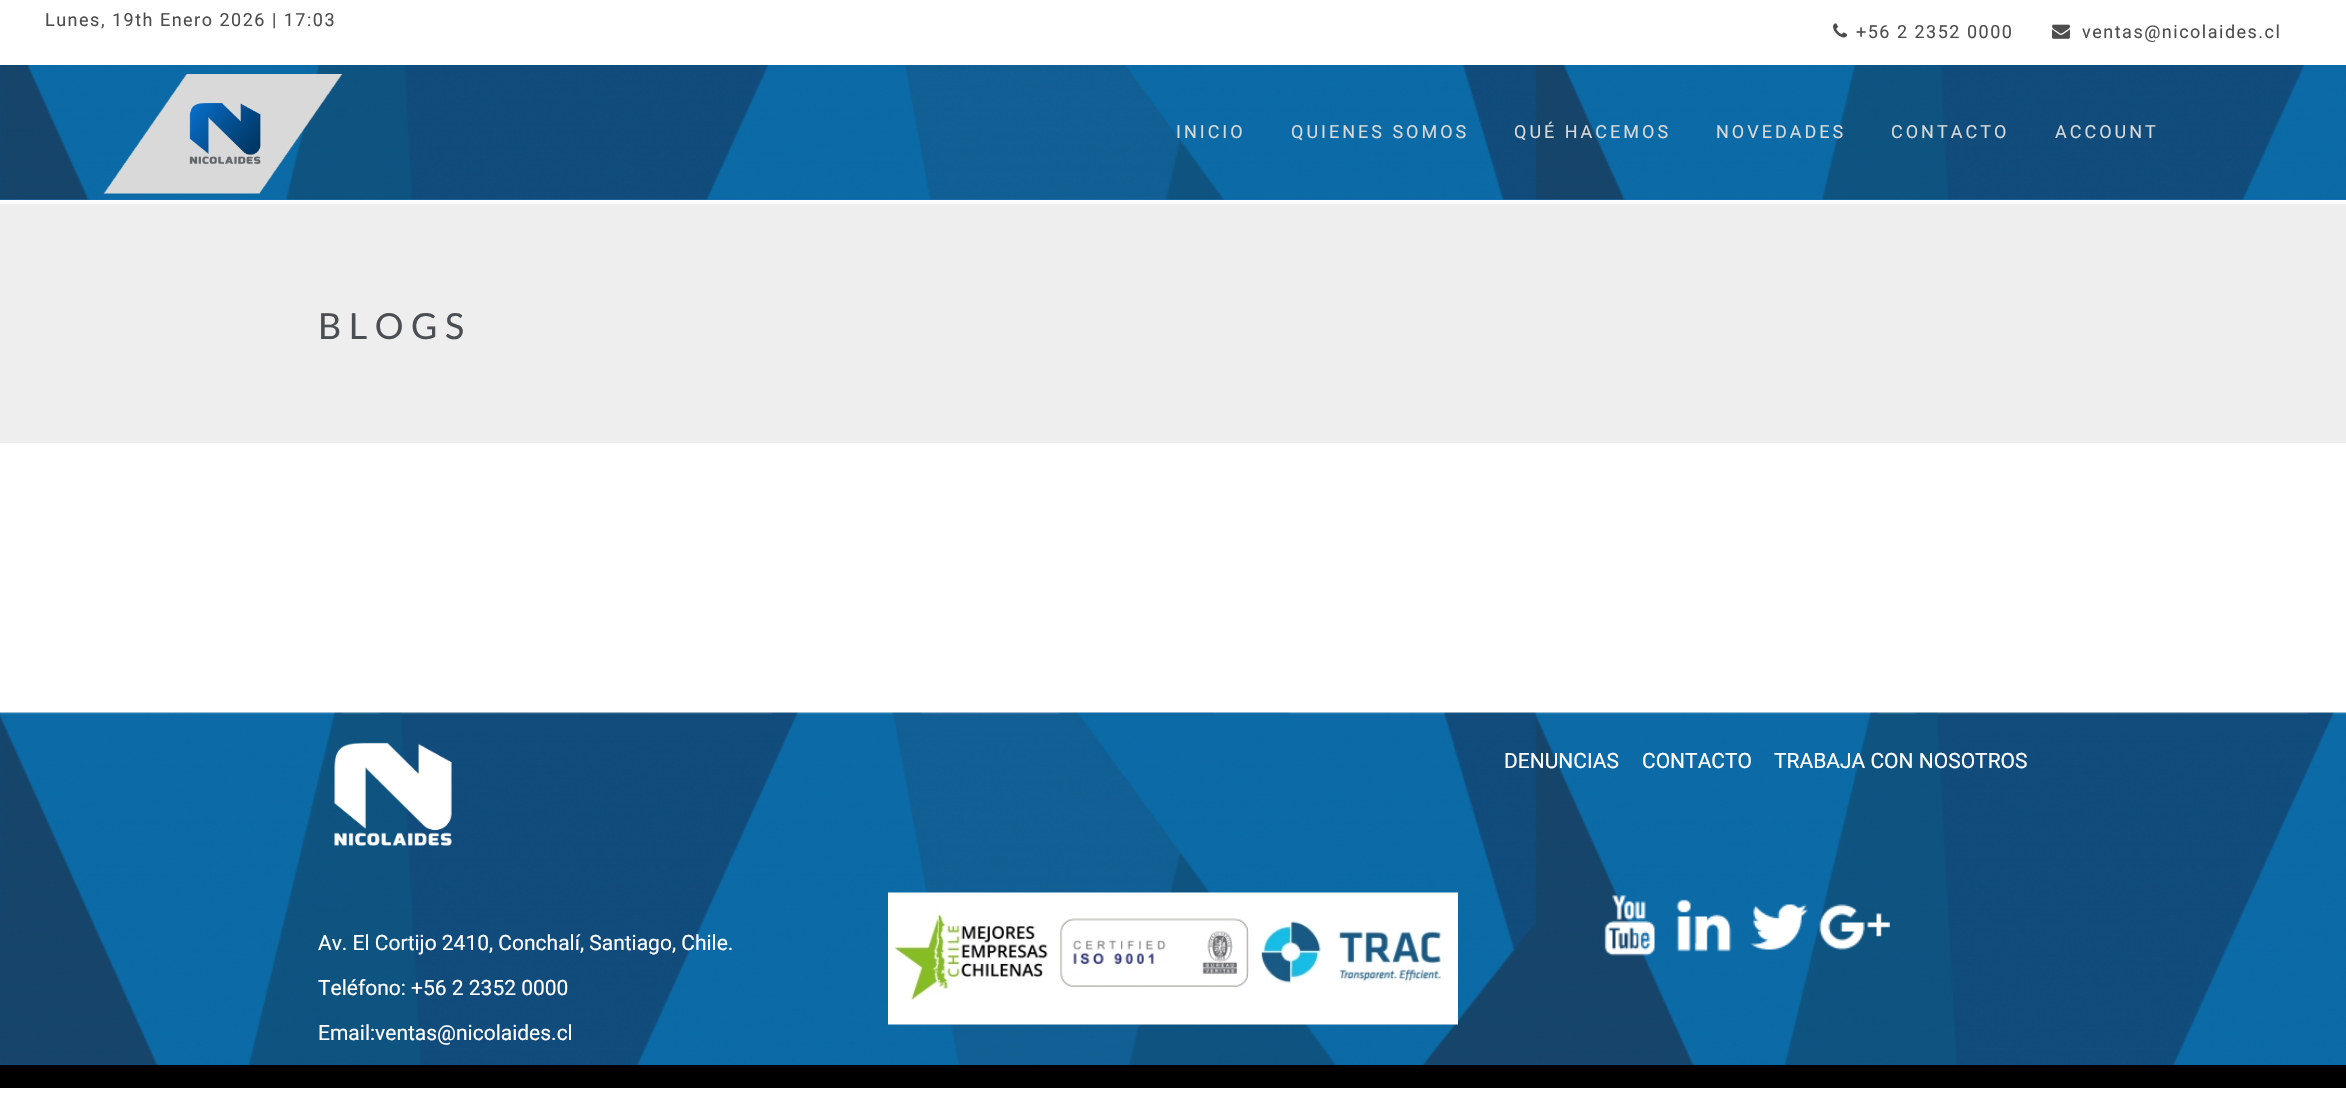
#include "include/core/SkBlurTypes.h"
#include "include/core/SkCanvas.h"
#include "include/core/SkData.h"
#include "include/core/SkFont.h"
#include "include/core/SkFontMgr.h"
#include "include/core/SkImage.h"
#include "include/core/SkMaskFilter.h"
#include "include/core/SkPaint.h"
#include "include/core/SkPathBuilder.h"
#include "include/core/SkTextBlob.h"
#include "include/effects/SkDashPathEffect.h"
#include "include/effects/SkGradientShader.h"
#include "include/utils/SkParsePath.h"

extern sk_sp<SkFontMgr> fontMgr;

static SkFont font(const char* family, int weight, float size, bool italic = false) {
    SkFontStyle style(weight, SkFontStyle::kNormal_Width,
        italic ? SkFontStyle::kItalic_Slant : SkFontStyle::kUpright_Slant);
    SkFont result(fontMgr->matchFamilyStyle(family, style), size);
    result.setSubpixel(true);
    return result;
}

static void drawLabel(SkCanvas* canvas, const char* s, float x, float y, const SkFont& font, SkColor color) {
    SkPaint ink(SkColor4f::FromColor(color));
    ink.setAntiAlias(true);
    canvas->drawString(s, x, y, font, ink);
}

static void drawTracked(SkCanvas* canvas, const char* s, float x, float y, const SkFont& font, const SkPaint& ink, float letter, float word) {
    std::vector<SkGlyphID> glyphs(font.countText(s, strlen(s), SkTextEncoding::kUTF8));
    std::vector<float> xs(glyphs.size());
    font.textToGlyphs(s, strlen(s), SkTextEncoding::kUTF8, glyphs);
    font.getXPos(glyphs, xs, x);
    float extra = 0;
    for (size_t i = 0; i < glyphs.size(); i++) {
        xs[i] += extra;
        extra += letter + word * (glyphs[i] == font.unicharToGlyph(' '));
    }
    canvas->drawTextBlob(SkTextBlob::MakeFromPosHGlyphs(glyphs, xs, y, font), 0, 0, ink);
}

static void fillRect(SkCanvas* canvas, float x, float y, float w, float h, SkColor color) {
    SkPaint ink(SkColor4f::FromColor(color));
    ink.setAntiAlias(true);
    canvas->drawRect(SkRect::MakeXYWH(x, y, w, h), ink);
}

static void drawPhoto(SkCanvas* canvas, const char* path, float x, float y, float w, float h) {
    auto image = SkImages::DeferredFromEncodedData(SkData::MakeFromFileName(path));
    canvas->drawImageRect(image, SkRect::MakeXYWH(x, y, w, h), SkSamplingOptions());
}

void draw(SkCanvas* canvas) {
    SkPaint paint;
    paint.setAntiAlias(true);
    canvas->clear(0xFFFFFFFF);
    fillRect(canvas, 0, 199, 2346, 1, 0xFF1E73BE);
    drawPhoto(canvas, "assets/img1.png", 0, 65, 2346, 135);
    SkFont font1 = font("Roboto", 400, 18);
    paint.setColor(0xFF4D4D4D);
    drawTracked(canvas, "Lunes, 19th Enero 2026 | 17:03", 45, 26, font1, paint, 1.5f, 0);
    drawPhoto(canvas, "assets/img2.png", 1833, 23, 15, 15);
    drawTracked(canvas, "+56 2 2352 0000", 1856, 38, font1, paint, 1.5f, 0);
    drawPhoto(canvas, "assets/img3.png", 2052, 24, 18, 15);
    drawTracked(canvas, "ventas@nicolaides.cl", 2082, 38, font1, paint, 1.5f, 0);
    drawPhoto(canvas, "assets/img4.png", 103, 74, 240, 120);
    paint.setColor(0xFFD9D9D9);
    drawTracked(canvas, "INICIO", 1176, 138, font1, paint, 3, 0);
    drawTracked(canvas, "QUIENES SOMOS", 1291, 138, font1, paint, 3, 0);
    drawTracked(canvas, "QUÉ HACEMOS", 1514, 138, font1, paint, 3, 0);
    drawTracked(canvas, "NOVEDADES", 1716, 138, font1, paint, 3, 0);
    drawTracked(canvas, "CONTACTO", 1891, 138, font1, paint, 3, 0);
    drawTracked(canvas, "ACCOUNT", 2055, 138, font1, paint, 3, 0);
    fillRect(canvas, 0, 204, 2346, 239, 0xFFEEEEEE);
    SkFont font2 = font("Lato", 400, 36);
    paint.setColor(0xFF4B4E53);
    drawTracked(canvas, "BLOGS", 318, 339, font2, paint, 7.5f, 0);
    drawPhoto(canvas, "assets/img5.png", 0, 712, 2346, 353);
    fillRect(canvas, 0, 1065, 2346, 23, 0xFF000000);
    SkFont font3 = font("Roboto", 400, 21);
    drawLabel(canvas, "DENUNCIAS", 1504, 768, font3, 0xFFFFFFFF);
    drawLabel(canvas, "CONTACTO", 1642, 768, font3, 0xFFFFFFFF);
    drawLabel(canvas, "TRABAJA CON NOSOTROS", 1774, 768, font3, 0xFFFFFFFF);
    drawPhoto(canvas, "assets/img6.png", 1604, 895, 51, 61);
    drawPhoto(canvas, "assets/img7.png", 1676, 899, 56, 53);
    drawPhoto(canvas, "assets/img8.png", 1750, 904, 58, 46);
    drawPhoto(canvas, "assets/img9.png", 1819, 904, 71, 46);
    drawPhoto(canvas, "assets/img10.png", 334, 742, 118, 104);
    drawLabel(canvas, "Av. El Cortijo 2410, Conchalí, Santiago, Chile.", 318, 950, font3, 0xFFFFFFFF);
    drawLabel(canvas, "Teléfono: +56 2 2352 0000", 318, 995, font3, 0xFFFFFFFF);
    drawLabel(canvas, "Email:ventas@nicolaides.cl", 318, 1040, font3, 0xFFFFFFFF);
    drawPhoto(canvas, "assets/img11.png", 888, 892, 570, 133);
}
